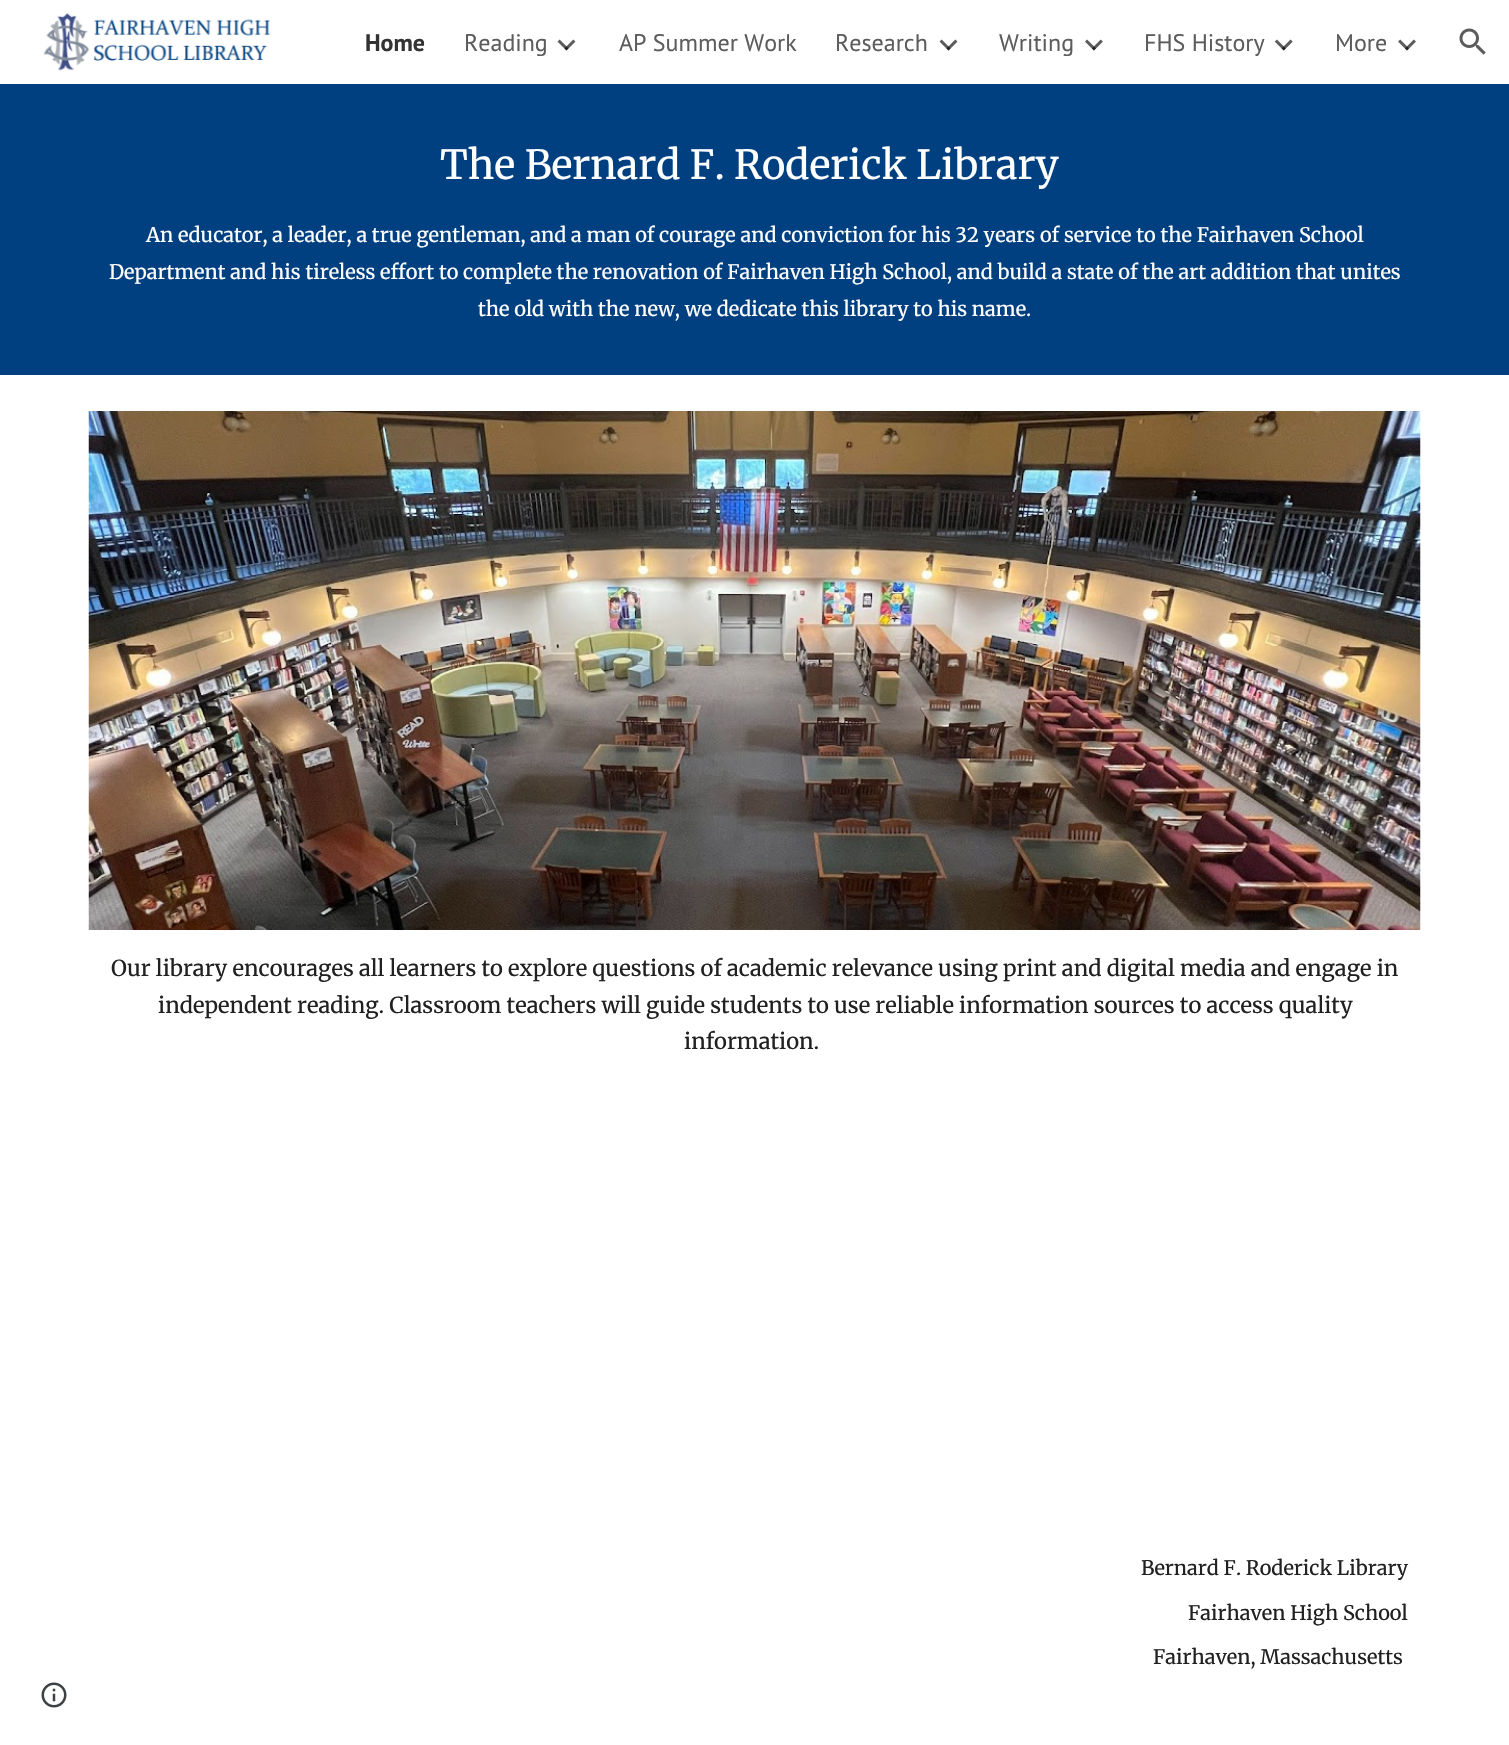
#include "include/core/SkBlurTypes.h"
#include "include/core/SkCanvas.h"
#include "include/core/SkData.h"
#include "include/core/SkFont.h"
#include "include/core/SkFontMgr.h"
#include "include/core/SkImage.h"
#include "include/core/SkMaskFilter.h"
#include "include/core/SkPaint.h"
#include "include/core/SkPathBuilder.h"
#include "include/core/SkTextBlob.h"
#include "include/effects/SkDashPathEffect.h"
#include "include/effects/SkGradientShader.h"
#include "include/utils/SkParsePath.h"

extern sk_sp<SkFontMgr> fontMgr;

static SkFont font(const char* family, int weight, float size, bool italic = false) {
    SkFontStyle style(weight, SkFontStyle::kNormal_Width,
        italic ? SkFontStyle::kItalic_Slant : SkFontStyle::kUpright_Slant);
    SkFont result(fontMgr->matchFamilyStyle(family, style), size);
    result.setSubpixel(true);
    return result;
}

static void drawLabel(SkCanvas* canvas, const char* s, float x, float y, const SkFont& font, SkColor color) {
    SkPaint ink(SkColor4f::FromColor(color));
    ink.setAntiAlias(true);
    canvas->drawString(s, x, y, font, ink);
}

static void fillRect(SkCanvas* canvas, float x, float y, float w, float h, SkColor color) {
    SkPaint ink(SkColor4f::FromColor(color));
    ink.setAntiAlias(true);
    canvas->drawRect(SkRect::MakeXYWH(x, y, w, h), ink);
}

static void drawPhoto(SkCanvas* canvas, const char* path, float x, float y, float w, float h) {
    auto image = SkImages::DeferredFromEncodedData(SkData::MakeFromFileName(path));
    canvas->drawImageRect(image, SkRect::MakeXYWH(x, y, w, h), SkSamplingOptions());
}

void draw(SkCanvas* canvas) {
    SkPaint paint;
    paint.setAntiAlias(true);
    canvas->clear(0xFFFFFFFF);
    drawPhoto(canvas, "assets/img1.png", 43, 12, 228, 59);
    SkFont font1 = font("PT Sans", 700, 24);
    drawLabel(canvas, "Home", 365, 51, font1, 0xFF333333);
    SkFont font2 = font("PT Sans", 400, 24);
    drawLabel(canvas, "Reading", 464, 51, font2, 0xFF5C5C5C);
    drawPhoto(canvas, "assets/img2.png", 557, 39, 19, 12);
    drawLabel(canvas, "AP Summer Work", 619, 51, font2, 0xFF5C5C5C);
    drawLabel(canvas, "Research", 835, 51, font2, 0xFF5C5C5C);
    drawPhoto(canvas, "assets/img3.png", 939, 39, 19, 12);
    drawLabel(canvas, "Writing", 999, 51, font2, 0xFF5C5C5C);
    drawPhoto(canvas, "assets/img4.png", 1085, 39, 18, 12);
    drawLabel(canvas, "FHS History", 1144, 51, font2, 0xFF5C5C5C);
    drawPhoto(canvas, "assets/img5.png", 1274, 39, 19, 12);
    drawLabel(canvas, "More", 1335, 51, font2, 0xFF5C5C5C);
    drawPhoto(canvas, "assets/img6.png", 1398, 39, 18, 12);
    drawPhoto(canvas, "assets/img7.png", 1459, 28, 27, 27);
    fillRect(canvas, 0, 84, 1509, 291, 0xFF004080);
    SkFont font3 = font("Merriweather", 400, 40);
    drawLabel(canvas, "The Bernard F. Roderick Library", 440, 179, font3, 0xFFFFFFFF);
    SkFont font4 = font("Merriweather", 400, 20);
    drawLabel(canvas, "An educator, a leader, a true gentleman, and a man of courage and conviction for his 32 years of service to the Fairhaven School", 146, 242, font4, 0xFFFFFFFF);
    drawLabel(canvas, "Department and his tireless effort to complete the renovation of Fairhaven High School, and build a state of the art addition that unites", 109, 279, font4, 0xFFFFFFFF);
    drawLabel(canvas, "the old with the new, we dedicate this library to his name.", 478, 316, font4, 0xFFFFFFFF);
    drawPhoto(canvas, "assets/img8.png", 88, 411, 1333, 519);
    SkFont font5 = font("Merriweather", 400, 22);
    drawLabel(canvas, "Our library encourages all learners to explore questions of academic relevance using print and digital media and engage in", 111, 976, font5, 0xFF212121);
    drawLabel(canvas, "independent reading. Classroom teachers will guide students to use reliable information sources to access quality", 158, 1013, font5, 0xFF212121);
    drawLabel(canvas, "information.", 684, 1049, font5, 0xFF212121);
    drawLabel(canvas, "Bernard F. Roderick Library", 1141, 1575, font4, 0xFF212121);
    drawLabel(canvas, "Fairhaven High School", 1188, 1620, font4, 0xFF212121);
    drawLabel(canvas, "Fairhaven, Massachusetts", 1153, 1664, font4, 0xFF212121);
    drawPhoto(canvas, "assets/img9.png", 41, 1682, 26, 26);
}
